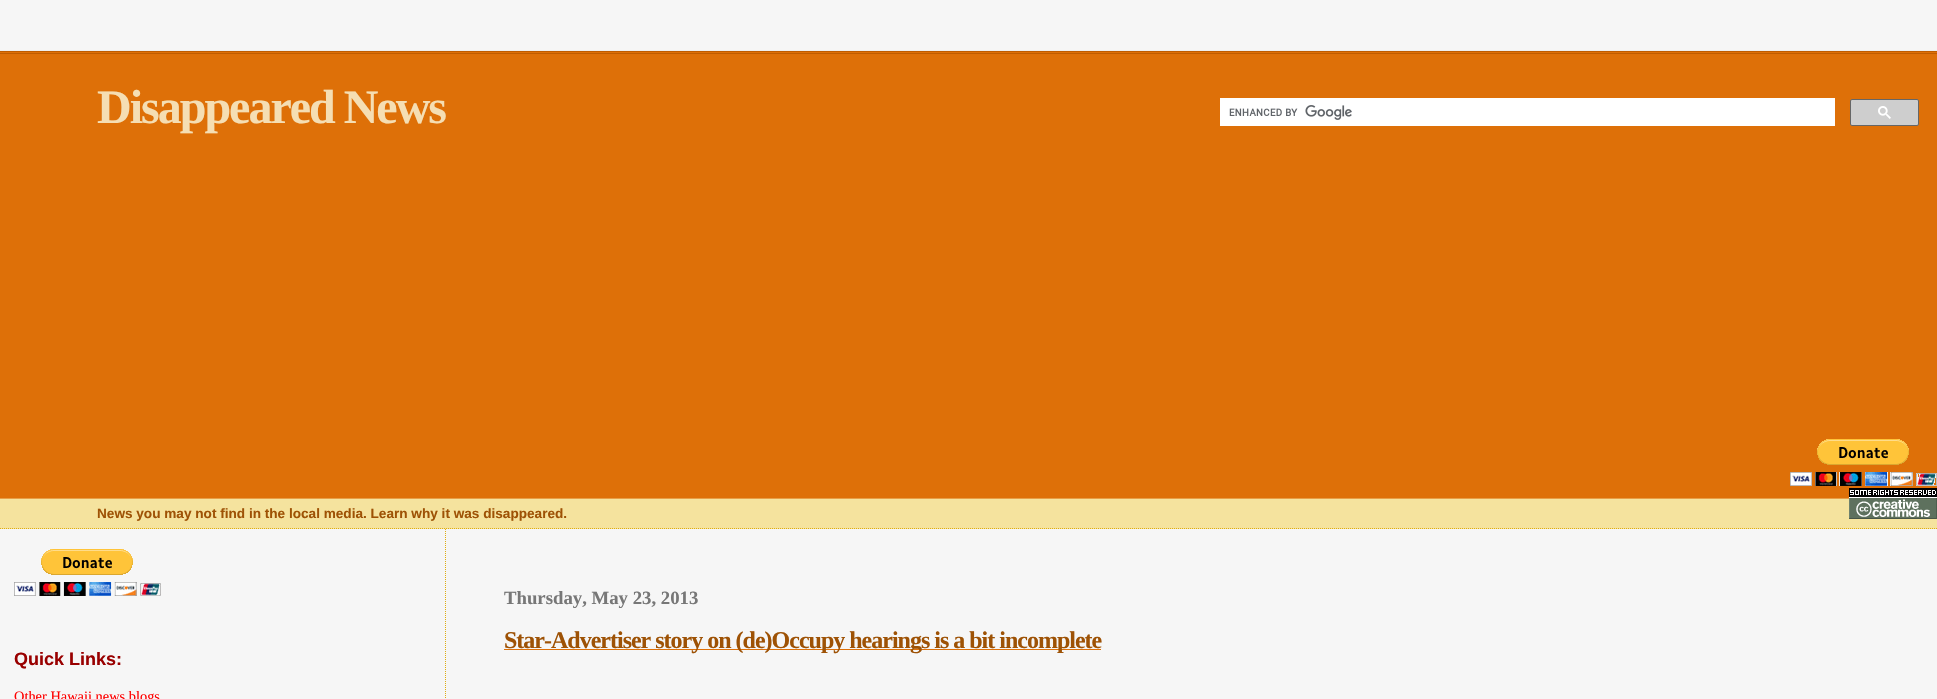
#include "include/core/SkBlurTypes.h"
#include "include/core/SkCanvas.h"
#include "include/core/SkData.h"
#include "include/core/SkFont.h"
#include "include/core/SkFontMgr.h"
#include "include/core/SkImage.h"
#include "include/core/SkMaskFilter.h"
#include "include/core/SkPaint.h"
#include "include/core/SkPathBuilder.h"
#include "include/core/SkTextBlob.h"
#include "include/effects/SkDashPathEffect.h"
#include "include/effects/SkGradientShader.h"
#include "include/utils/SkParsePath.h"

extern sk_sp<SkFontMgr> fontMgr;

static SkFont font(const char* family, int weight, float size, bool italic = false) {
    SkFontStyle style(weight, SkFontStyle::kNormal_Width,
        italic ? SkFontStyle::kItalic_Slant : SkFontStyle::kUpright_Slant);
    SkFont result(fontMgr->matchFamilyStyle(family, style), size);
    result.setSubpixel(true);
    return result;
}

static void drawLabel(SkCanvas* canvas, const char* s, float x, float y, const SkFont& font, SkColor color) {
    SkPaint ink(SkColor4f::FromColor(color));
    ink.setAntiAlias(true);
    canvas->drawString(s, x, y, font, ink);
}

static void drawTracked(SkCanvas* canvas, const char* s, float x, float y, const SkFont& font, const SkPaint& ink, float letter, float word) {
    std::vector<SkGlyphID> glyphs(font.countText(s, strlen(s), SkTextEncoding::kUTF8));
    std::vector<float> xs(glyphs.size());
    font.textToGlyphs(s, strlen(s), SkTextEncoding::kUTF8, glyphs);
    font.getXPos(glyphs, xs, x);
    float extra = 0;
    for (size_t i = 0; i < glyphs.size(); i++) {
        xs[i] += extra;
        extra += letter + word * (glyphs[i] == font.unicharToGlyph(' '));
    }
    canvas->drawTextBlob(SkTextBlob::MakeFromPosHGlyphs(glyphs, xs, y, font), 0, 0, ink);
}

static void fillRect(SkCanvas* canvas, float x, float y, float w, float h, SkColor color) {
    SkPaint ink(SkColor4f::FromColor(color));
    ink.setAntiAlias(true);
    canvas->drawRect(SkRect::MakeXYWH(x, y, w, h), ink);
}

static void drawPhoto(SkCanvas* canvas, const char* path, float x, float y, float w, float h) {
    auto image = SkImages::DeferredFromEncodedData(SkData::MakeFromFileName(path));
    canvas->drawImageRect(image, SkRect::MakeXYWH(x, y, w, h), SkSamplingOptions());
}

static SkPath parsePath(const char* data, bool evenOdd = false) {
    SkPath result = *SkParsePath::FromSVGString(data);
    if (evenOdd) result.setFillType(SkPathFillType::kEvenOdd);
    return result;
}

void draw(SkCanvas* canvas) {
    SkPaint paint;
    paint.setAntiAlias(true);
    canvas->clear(0xFFF6F6F6);
    fillRect(canvas, 0, 499, 1937, 30, 0xFFF5E39E);
    fillRect(canvas, 0, 50, 1937, 1, 0xFFEEEEEE);
    paint.setStroke(true);
    paint.setStrokeWidth(1);
    paint.setColor(0xFFE0AD12);
    paint.setPathEffect(SkDashPathEffect::Make({{1, 1}}, 0));
    canvas->drawPath(parsePath("M0 528.5H1937"), paint);
    paint.setPathEffect(nullptr);
    fillRect(canvas, 0, 52, 1937, 446, 0xFFDE7008);
    fillRect(canvas, 0, 51, 1937, 1, 0xFFBF5C00);
    fillRect(canvas, 0, 53, 1937, 1, 0xFFBF5C00);
    fillRect(canvas, 0, 498, 1849, 1, 0xFFE89E47);
    SkFont font1 = font("Liberation Serif", 700, 48);
    paint.setStroke(false);
    paint.setColor(0xFFF5DEB3);
    drawTracked(canvas, "Disappeared News", 97, 123, font1, paint, -2, 0);
    fillRect(canvas, 1220, 98, 615, 28, 0xFFFFFFFF);
    drawPhoto(canvas, "assets/img1.png", 1229, 105, 123, 15);
    paint.setColor(0xFFCECECE);
    canvas->drawRoundRect(SkRect::MakeXYWH(1850.5f, 99.5f, 68, 26), 1.5f, 1.5f, paint);
    paint.setStroke(true);
    paint.setColor(0xFF666666);
    canvas->drawRoundRect(SkRect::MakeXYWH(1850.5f, 99.5f, 68, 26), 1.5f, 1.5f, paint);
    drawPhoto(canvas, "assets/img2.png", 1878, 106, 13, 13);
    drawPhoto(canvas, "assets/img3.png", 1790, 439, 147, 47);
    drawPhoto(canvas, "assets/img4.png", 1849, 488, 88, 31);
    SkFont font2 = font("Liberation Sans", 700, 13.6f);
    drawLabel(canvas, "News you may not find in the local media. Learn why it was disappeared.", 97, 518, font2, 0xFF9E5205);
    paint.setColor(0xFFE0AD12);
    paint.setPathEffect(SkDashPathEffect::Make({{1, 1}}, 0));
    canvas->drawPath(parsePath("M445.5 529V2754"), paint);
    paint.setPathEffect(nullptr);
    SkFont font3 = font("Liberation Serif", 700, 18.75f);
    drawLabel(canvas, "Thursday, May 23, 2013", 504, 604, font3, 0xFF777777);
    fillRect(canvas, 504, 649, 597, 1, 0xFFDE7008);
    SkFont font4 = font("Liberation Serif", 700, 24);
    paint.setStroke(false);
    paint.setColor(0xFF9E5205);
    drawTracked(canvas, "Star-Advertiser story on (de)Occupy hearings is a bit incomplete", 504, 648, font4, paint, -1, 0);
    drawPhoto(canvas, "assets/img5.png", 14, 549, 147, 47);
    SkFont font5 = font("Liberation Sans", 700, 18);
    drawLabel(canvas, "Quick Links:", 14, 665, font5, 0xFF990000);
    SkFont font6 = font("Liberation Serif", 400, 14.4f);
    drawLabel(canvas, "Other Hawaii news blogs", 14, 701, font6, 0xFFFF0000);
}
